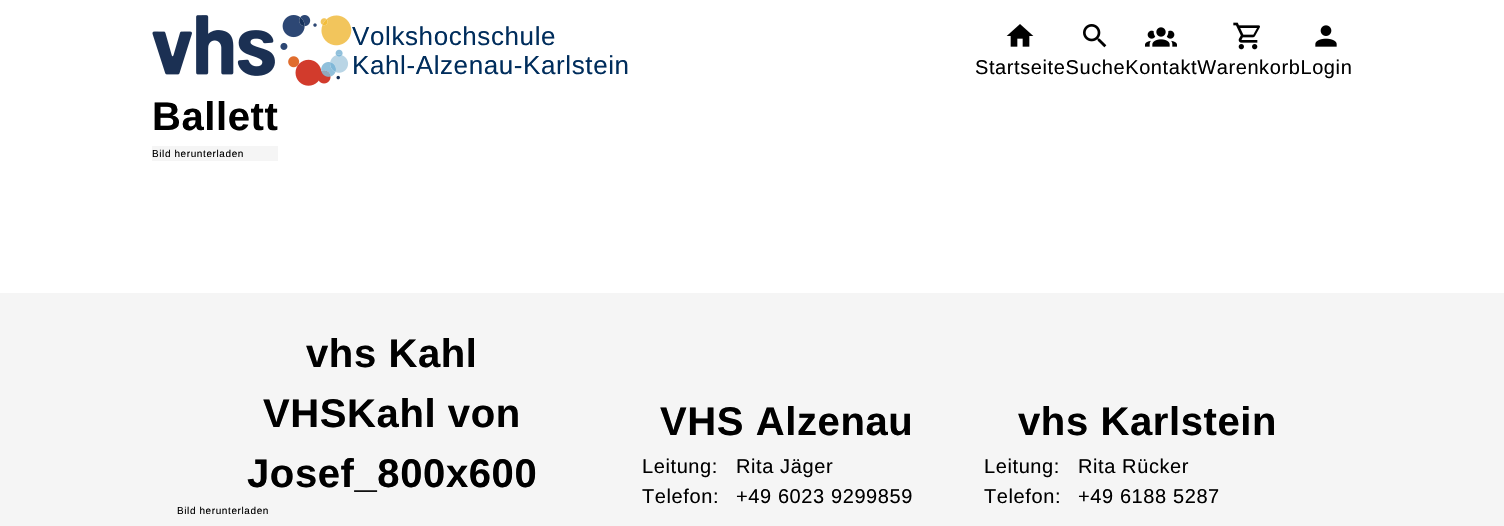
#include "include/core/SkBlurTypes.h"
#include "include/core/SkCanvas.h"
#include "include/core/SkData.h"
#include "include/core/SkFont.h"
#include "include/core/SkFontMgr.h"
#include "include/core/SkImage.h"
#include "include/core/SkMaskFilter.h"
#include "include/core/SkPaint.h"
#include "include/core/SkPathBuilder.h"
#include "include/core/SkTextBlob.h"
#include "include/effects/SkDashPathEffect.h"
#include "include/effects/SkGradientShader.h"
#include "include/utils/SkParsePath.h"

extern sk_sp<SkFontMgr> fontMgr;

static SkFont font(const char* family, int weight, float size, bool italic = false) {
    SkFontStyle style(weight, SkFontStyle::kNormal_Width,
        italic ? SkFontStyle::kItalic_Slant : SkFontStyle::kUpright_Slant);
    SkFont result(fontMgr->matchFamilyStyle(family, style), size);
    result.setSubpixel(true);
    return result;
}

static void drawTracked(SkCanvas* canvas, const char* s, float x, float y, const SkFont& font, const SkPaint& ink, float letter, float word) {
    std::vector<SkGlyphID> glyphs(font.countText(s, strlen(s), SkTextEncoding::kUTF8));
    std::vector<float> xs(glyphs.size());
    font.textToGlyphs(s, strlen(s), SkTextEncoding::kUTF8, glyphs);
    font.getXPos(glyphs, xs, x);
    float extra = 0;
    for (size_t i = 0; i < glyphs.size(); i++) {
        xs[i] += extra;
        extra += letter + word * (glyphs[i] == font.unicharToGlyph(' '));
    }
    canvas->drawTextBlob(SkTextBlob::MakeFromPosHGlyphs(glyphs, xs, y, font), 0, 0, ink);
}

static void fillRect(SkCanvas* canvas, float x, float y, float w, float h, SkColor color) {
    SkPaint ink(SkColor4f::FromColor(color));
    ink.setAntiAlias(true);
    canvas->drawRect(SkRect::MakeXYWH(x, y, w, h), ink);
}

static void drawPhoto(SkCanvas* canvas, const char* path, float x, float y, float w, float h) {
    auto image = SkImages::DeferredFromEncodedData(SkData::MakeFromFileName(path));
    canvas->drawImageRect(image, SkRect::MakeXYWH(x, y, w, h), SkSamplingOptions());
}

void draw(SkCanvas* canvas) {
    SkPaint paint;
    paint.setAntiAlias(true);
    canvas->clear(0xFFFFFFFF);
    drawPhoto(canvas, "assets/img1.png", 152, 15, 200, 71);
    SkFont font1 = font("Liberation Sans", 400, 26);
    paint.setColor(0xFF002D5C);
    drawTracked(canvas, "Volkshochschule", 352, 45, font1, paint, 0.6f, 0);
    drawTracked(canvas, "Kahl-Alzenau-Karlstein", 352, 74, font1, paint, 0.6f, 0);
    drawPhoto(canvas, "assets/img2.png", 1083, 24, 24, 24);
    drawPhoto(canvas, "assets/img3.png", 1145, 27, 32, 20);
    drawPhoto(canvas, "assets/img4.png", 1233, 22, 27, 28);
    drawPhoto(canvas, "assets/img5.png", 1315, 25, 22, 22);
    drawPhoto(canvas, "assets/img6.png", 1006, 24, 28, 23);
    SkFont font2 = font("Liberation Sans", 400, 20);
    paint.setColor(0xFF000000);
    drawTracked(canvas, "StartseiteSucheKontaktWarenkorbLogin", 975, 74, font2, paint, 0.6f, 0);
    SkFont font3 = font("Liberation Sans", 700, 40);
    drawTracked(canvas, "Ballett", 152, 130, font3, paint, 0.6f, 0);
    fillRect(canvas, 152, 146, 126, 15, 0xFFF5F5F5);
    SkFont font4 = font("Liberation Sans", 400, 10);
    drawTracked(canvas, "Bild herunterladen", 152, 157, font4, paint, 0.6f, 0);
    fillRect(canvas, 0, 293, 1504, 233, 0xFFF5F5F5);
    drawTracked(canvas, "vhs Kahl", 306, 367, font3, paint, 0.6f, 0);
    drawTracked(canvas, "VHSKahl von", 263, 427, font3, paint, 0.6f, 0);
    drawTracked(canvas, "Josef_800x600", 247, 487, font3, paint, 0.6f, 0);
    drawTracked(canvas, "Bild herunterladen", 177, 514, font4, paint, 0.6f, 0);
    drawTracked(canvas, "VHS Alzenau", 660, 435, font3, paint, 0.6f, 0);
    drawTracked(canvas, "Leitung:", 642, 473, font2, paint, 0.6f, 0);
    drawTracked(canvas, "Rita Jäger", 736, 473, font2, paint, 0.6f, 0);
    drawTracked(canvas, "Telefon:", 642, 503, font2, paint, 0.6f, 0);
    drawTracked(canvas, "+49 6023 9299859", 736, 503, font2, paint, 0.6f, 0);
    drawTracked(canvas, "vhs Karlstein", 1018, 435, font3, paint, 0.6f, 0);
    drawTracked(canvas, "Leitung:", 984, 473, font2, paint, 0.6f, 0);
    drawTracked(canvas, "Rita Rücker", 1078, 473, font2, paint, 0.6f, 0);
    drawTracked(canvas, "Telefon:", 984, 503, font2, paint, 0.6f, 0);
    drawTracked(canvas, "+49 6188 5287", 1078, 503, font2, paint, 0.6f, 0);
}
